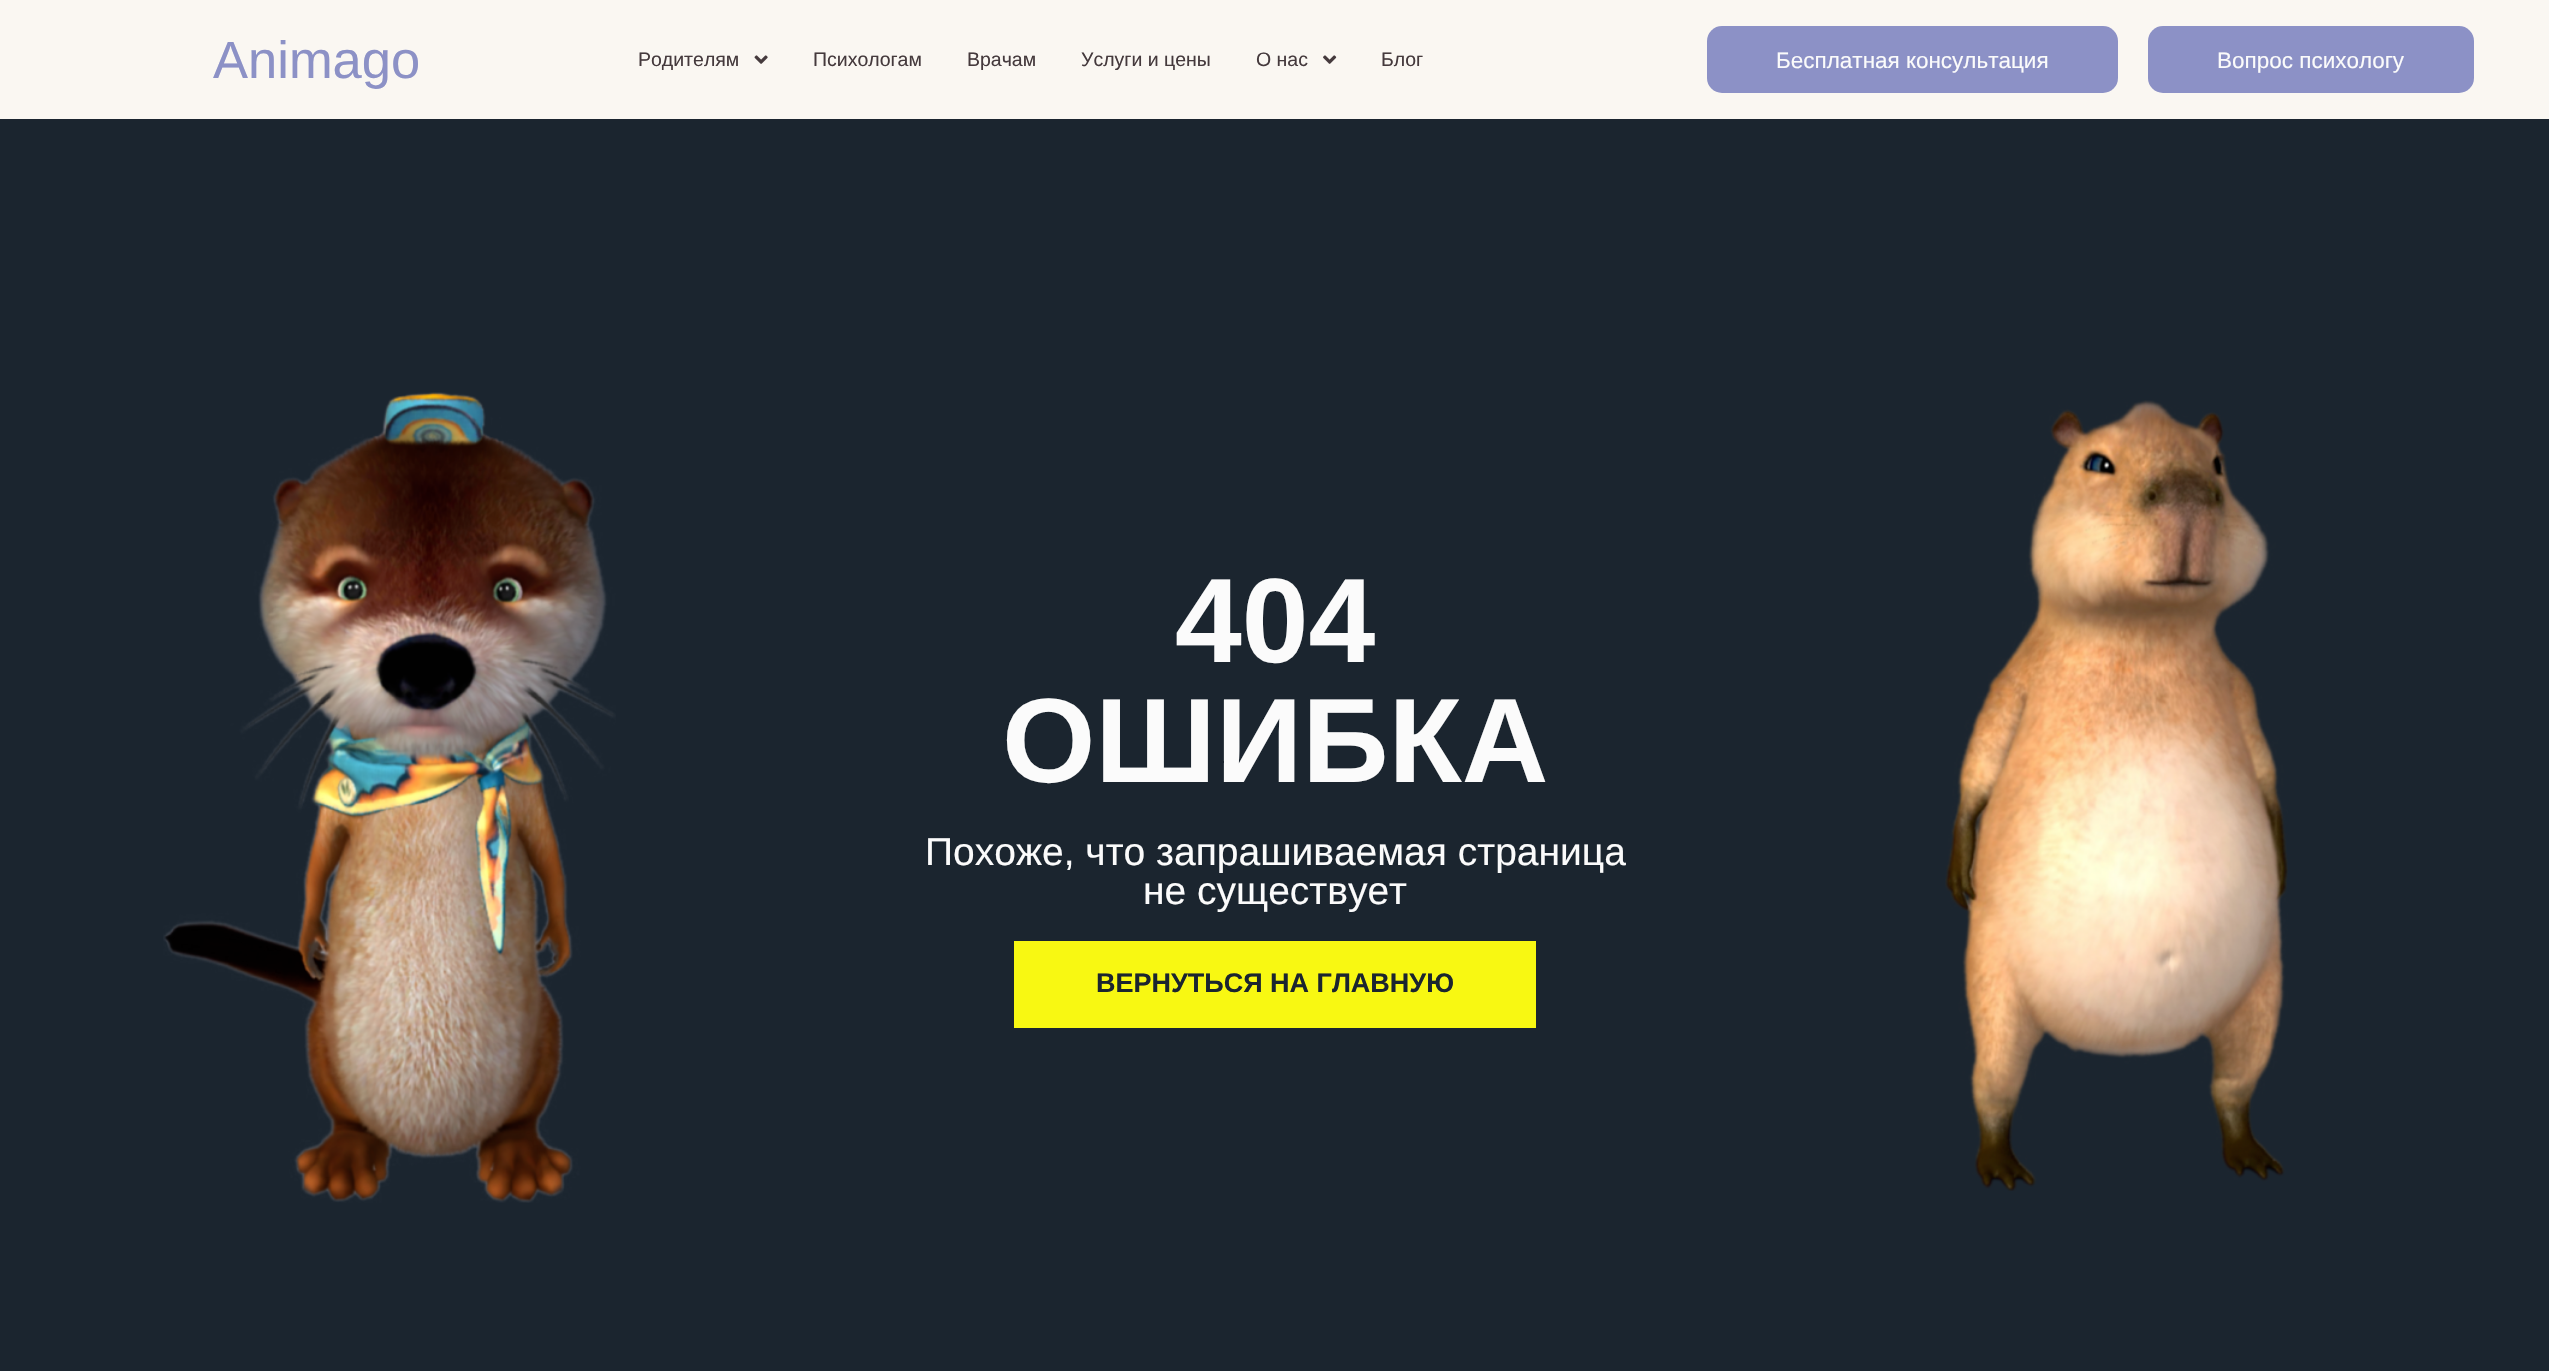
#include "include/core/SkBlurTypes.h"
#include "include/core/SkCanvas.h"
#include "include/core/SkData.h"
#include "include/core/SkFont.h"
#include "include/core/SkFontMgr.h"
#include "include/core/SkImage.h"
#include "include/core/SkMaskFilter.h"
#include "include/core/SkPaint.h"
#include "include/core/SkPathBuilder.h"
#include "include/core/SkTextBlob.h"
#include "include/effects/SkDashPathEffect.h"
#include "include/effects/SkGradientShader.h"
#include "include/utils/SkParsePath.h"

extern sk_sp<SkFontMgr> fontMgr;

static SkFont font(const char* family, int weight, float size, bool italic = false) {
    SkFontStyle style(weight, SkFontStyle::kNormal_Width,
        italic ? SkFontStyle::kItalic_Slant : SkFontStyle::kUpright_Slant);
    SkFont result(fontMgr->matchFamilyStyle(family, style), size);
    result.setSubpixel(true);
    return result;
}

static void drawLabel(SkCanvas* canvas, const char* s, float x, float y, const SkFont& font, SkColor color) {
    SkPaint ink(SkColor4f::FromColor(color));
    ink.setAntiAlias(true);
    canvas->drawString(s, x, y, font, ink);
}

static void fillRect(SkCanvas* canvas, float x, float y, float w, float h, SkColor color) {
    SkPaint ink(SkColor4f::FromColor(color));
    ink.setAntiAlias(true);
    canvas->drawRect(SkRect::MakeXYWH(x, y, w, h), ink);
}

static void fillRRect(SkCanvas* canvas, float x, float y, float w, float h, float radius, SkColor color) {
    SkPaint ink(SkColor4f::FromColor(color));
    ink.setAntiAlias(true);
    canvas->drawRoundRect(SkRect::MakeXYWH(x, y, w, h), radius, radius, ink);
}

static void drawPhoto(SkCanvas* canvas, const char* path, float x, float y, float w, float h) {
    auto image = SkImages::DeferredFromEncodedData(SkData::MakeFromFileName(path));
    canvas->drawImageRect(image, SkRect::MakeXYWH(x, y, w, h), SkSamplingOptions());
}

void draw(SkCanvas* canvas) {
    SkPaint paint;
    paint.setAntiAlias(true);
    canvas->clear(0xFF1B252F);
    fillRect(canvas, 0, 0, 2549, 119, 0xFFFAF7F2);
    SkFont font1 = font("Liberation Sans", 400, 52.5f);
    drawLabel(canvas, "Animago", 213, 78, font1, 0xFF8C91C6);
    SkFont font2 = font("Liberation Sans", 400, 19.5f);
    drawLabel(canvas, "Родителям", 638, 66, font2, 0xFF453A3D);
    drawPhoto(canvas, "assets/img1.png", 754, 55, 14, 9);
    drawLabel(canvas, "Психологам", 813, 66, font2, 0xFF453A3D);
    drawLabel(canvas, "Врачам", 967, 66, font2, 0xFF453A3D);
    drawLabel(canvas, "Услуги и цены", 1081, 66, font2, 0xFF453A3D);
    drawLabel(canvas, "О нас", 1256, 66, font2, 0xFF453A3D);
    drawPhoto(canvas, "assets/img2.png", 1323, 55, 14, 9);
    drawLabel(canvas, "Блог", 1381, 66, font2, 0xFF453A3D);
    fillRRect(canvas, 1707, 26, 411, 67, 15, 0xFF8C91C6);
    SkFont font3 = font("Liberation Sans", 400, 22.5f);
    drawLabel(canvas, "Бесплатная консультация", 1776, 68, font3, 0xFFFBFBFB);
    fillRRect(canvas, 2148, 26, 326, 67, 15, 0xFF8C91C6);
    drawLabel(canvas, "Вопрос психологу", 2217, 68, font3, 0xFFFBFBFB);
    drawPhoto(canvas, "assets/img3.png", 163, 392, 453, 811);
    SkFont font4 = font("Liberation Sans", 700, 120);
    drawLabel(canvas, "404", 1175, 662, font4, 0xFFFBFBFB);
    drawLabel(canvas, "ОШИБКА", 1002, 782, font4, 0xFFFBFBFB);
    SkFont font5 = font("Liberation Sans", 400, 39);
    drawLabel(canvas, "Похоже, что запрашиваемая страница", 925, 865, font5, 0xFFFBFBFB);
    drawLabel(canvas, "не существует", 1143, 904, font5, 0xFFFBFBFB);
    fillRect(canvas, 1014, 941, 522, 87, 0xFFF8F812);
    SkFont font6 = font("Liberation Sans", 700, 27);
    drawLabel(canvas, "ВЕРНУТЬСЯ НА ГЛАВНУЮ", 1096, 992, font6, 0xFF1B252F);
    drawPhoto(canvas, "assets/img4.png", 1945, 400, 343, 791);
}
